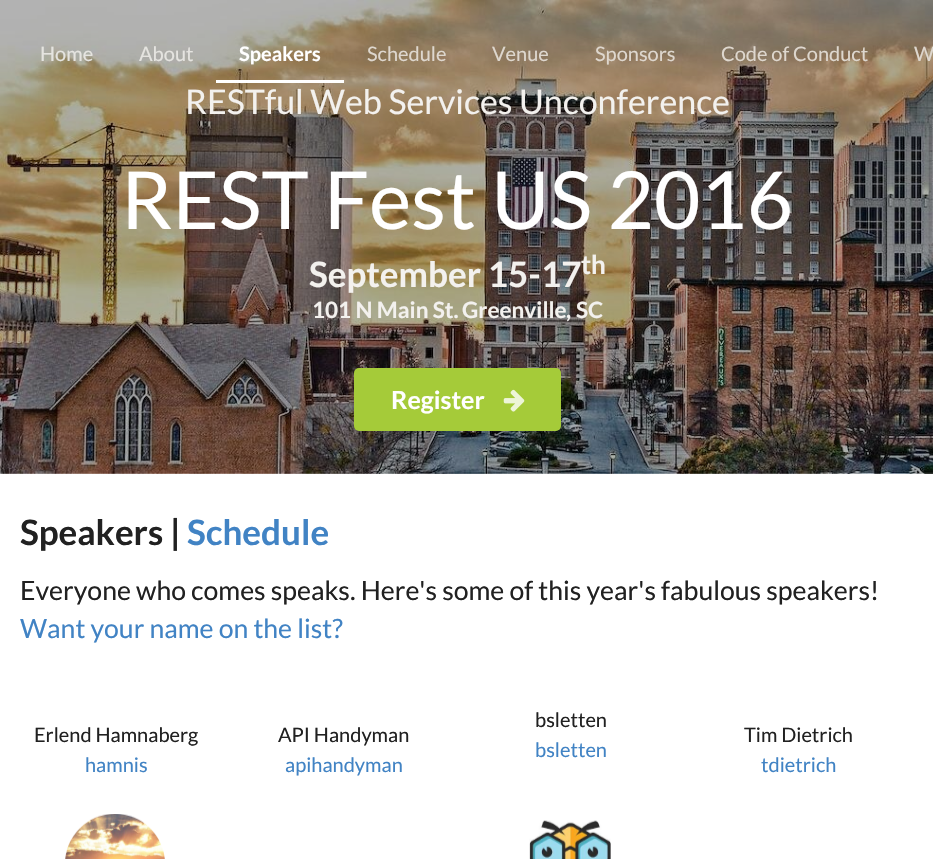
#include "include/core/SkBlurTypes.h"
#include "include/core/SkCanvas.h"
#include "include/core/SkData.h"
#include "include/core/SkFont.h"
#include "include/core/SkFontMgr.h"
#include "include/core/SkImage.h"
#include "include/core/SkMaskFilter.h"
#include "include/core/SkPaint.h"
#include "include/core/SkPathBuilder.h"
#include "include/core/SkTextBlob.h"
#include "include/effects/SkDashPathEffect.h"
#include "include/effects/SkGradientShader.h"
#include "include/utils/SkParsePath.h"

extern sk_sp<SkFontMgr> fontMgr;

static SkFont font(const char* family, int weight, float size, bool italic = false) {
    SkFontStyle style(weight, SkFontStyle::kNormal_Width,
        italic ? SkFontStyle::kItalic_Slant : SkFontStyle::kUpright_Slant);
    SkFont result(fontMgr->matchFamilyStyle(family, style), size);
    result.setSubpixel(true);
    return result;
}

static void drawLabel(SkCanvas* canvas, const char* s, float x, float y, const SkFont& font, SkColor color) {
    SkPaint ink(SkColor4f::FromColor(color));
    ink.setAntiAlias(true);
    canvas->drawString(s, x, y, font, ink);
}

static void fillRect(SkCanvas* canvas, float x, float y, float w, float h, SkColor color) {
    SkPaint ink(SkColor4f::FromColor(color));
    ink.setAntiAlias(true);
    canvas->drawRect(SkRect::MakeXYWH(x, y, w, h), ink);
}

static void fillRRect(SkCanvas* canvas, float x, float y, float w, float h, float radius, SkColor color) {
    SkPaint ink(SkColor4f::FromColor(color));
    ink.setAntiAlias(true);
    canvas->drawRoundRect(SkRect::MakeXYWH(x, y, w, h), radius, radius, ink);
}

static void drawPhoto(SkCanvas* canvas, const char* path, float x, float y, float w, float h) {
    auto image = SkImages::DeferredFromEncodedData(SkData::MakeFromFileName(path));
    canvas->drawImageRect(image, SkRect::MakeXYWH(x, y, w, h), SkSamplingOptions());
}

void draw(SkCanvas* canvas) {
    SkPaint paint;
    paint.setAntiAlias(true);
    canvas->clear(0xFFFFFFFF);
    drawPhoto(canvas, "assets/img1.png", 0, 0, 933, 474);
    SkFont font1 = font("Lato", 400, 20);
    drawLabel(canvas, "Home", 40, 61, font1, 0xFFE5E4E0);
    drawLabel(canvas, "About", 139, 61, font1, 0xFFE5E4E0);
    fillRect(canvas, 216, 80, 128, 3, 0xFFFFFFFF);
    SkFont font2 = font("Lato", 700, 20);
    drawLabel(canvas, "Speakers", 239, 61, font2, 0xFFFFFFFF);
    drawLabel(canvas, "Schedule", 367, 61, font1, 0xFFDED7CE);
    drawLabel(canvas, "Venue", 492, 61, font1, 0xFFDED7CE);
    drawLabel(canvas, "Sponsors", 595, 61, font1, 0xFFDED7CE);
    drawLabel(canvas, "Code of Conduct", 721, 61, font1, 0xFFDED7CE);
    drawLabel(canvas, "W", 914, 61, font1, 0xFFDED7CE);
    SkFont font3 = font("Lato", 400, 34);
    drawLabel(canvas, "RESTful Web Services Unconference", 185, 114, font3, 0xFFF3F1EE);
    SkFont font4 = font("Lato", 400, 80);
    drawLabel(canvas, "REST Fest US 2016", 121, 229, font4, 0xFFFFFFFF);
    SkFont font5 = font("Lato", 700, 35);
    drawLabel(canvas, "September 15-17", 309, 287, font5, 0xFFF3F1EE);
    SkFont font6 = font("Lato", 700, 26);
    drawLabel(canvas, "th", 581, 274, font6, 0xFFF3F1EE);
    SkFont font7 = font("Lato", 700, 22.5f);
    drawLabel(canvas, "101 N Main St.", 312, 318, font7, 0xFFF3F1EE);
    drawLabel(canvas, "Greenville", 462, 318, font7, 0xFFF3F1EE);
    drawLabel(canvas, ",", 566, 318, font7, 0xFFF3F1EE);
    drawLabel(canvas, "SC", 576, 318, font7, 0xFFF3F1EE);
    fillRRect(canvas, 354, 368, 207, 63, 5, 0xFFA5CB39);
    SkFont font8 = font("Lato", 700, 25);
    drawLabel(canvas, "Register", 391, 409, font8, 0xFFFFFFFF);
    drawPhoto(canvas, "assets/img2.png", 503, 389, 22, 23);
    drawLabel(canvas, "Speakers |", 20, 545, font5, 0xFF212121);
    drawLabel(canvas, "Schedule", 187, 545, font5, 0xFF4183C4);
    SkFont font9 = font("Lato", 400, 26.6f);
    drawLabel(canvas, "Everyone who comes speaks. Here's some of this year's fabulous speakers!", 20, 600, font9, 0xFF212121);
    drawLabel(canvas, "Want your name on the list?", 20, 638, font9, 0xFF4183C4);
    drawLabel(canvas, "Erlend Hamnaberg", 34, 742, font1, 0xFF212121);
    drawLabel(canvas, "hamnis", 85, 772, font1, 0xFF4183C4);
    drawLabel(canvas, "API Handyman", 278, 742, font1, 0xFF212121);
    drawLabel(canvas, "apihandyman", 285, 772, font1, 0xFF4183C4);
    drawLabel(canvas, "bsletten", 535, 727, font1, 0xFF212121);
    drawLabel(canvas, "bsletten", 535, 757, font1, 0xFF4183C4);
    drawLabel(canvas, "Tim Dietrich", 744, 742, font1, 0xFF212121);
    drawLabel(canvas, "tdietrich", 761, 772, font1, 0xFF4183C4);
    drawPhoto(canvas, "assets/img3.png", 65, 814, 100, 45);
    drawPhoto(canvas, "assets/img4.png", 529, 820, 82, 39);
}
